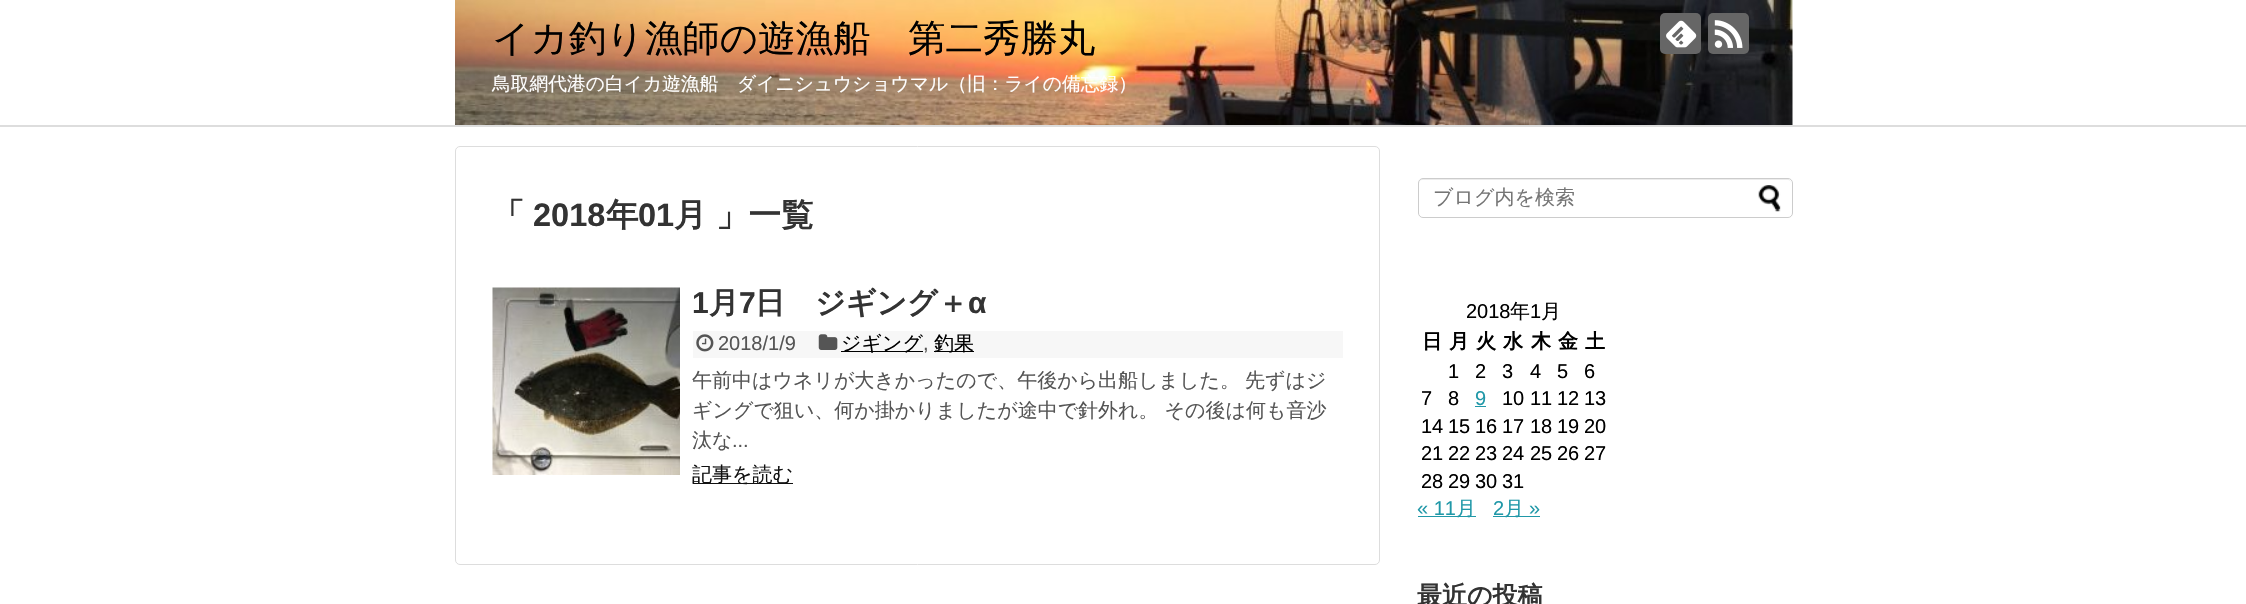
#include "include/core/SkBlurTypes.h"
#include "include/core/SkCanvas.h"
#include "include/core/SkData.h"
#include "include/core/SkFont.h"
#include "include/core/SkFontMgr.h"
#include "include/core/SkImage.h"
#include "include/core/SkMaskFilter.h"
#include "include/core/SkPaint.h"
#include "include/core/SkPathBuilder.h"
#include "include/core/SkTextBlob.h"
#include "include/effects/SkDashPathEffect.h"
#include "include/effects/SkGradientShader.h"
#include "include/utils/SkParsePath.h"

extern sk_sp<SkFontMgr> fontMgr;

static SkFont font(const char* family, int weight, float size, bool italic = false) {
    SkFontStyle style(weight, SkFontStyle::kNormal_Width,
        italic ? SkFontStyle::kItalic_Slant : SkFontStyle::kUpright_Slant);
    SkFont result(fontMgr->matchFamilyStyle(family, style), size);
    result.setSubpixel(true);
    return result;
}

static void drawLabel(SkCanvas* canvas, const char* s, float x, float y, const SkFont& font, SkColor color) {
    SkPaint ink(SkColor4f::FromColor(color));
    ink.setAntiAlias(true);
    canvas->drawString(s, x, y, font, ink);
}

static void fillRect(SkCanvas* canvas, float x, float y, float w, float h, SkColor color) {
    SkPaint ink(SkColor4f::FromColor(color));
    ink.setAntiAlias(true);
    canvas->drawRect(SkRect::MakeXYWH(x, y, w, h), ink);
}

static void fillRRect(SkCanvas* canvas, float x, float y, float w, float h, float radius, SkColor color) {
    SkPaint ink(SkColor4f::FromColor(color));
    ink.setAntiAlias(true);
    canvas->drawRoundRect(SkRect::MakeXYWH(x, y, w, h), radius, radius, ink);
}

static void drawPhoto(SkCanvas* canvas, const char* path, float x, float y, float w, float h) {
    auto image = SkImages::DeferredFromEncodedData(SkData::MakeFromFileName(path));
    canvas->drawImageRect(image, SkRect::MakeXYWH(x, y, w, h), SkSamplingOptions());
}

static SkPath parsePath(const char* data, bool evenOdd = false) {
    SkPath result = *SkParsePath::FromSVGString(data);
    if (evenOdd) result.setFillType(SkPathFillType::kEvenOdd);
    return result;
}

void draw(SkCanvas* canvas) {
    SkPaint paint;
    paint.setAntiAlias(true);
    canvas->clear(0xFFFFFFFF);
    drawPhoto(canvas, "assets/img1.png", 455, 0, 1338, 125);
    SkFont font1 = font("WenQuanYi Zen Hei", 500, 37.5f);
    drawLabel(canvas, "イカ釣り漁師の遊漁船　第二秀勝丸", 492, 51, font1, 0xFF000000);
    SkFont font2 = font("WenQuanYi Zen Hei", 500, 18.75f);
    drawLabel(canvas, "鳥取網代港の白イカ遊漁船　ダイニシュウショウマル（旧：ライの備忘録）", 492, 90, font2, 0xFFFFFFFF);
    fillRRect(canvas, 1660, 13, 41, 41, 5, 0xFF666666);
    drawPhoto(canvas, "assets/img2.png", 1666, 20, 31, 28);
    fillRRect(canvas, 1708, 13, 41, 41, 5, 0xFF666666);
    drawPhoto(canvas, "assets/img3.png", 1714, 20, 29, 28);
    fillRect(canvas, 0, 125, 2246, 2, 0xFFDDDDDD);
    paint.setStroke(true);
    paint.setStrokeWidth(1);
    paint.setColor(0xFFDDDDDD);
    canvas->drawRoundRect(SkRect::MakeXYWH(455.5f, 146.5f, 924, 418), 4.5f, 4.5f, paint);
    SkFont font3 = font("WenQuanYi Zen Hei", 700, 32.5f);
    drawLabel(canvas, "「", 492, 226, font3, 0xFF333333);
    SkFont font4 = font("Liberation Sans", 700, 32.5f);
    drawLabel(canvas, "2018", 533, 226, font4, 0xFF333333);
    drawLabel(canvas, "年", 606, 226, font3, 0xFF333333);
    drawLabel(canvas, "01", 638, 226, font4, 0xFF333333);
    drawLabel(canvas, "月", 674, 226, font3, 0xFF333333);
    drawLabel(canvas, "」一覧", 716, 226, font3, 0xFF333333);
    drawPhoto(canvas, "assets/img4.png", 492, 287, 188, 188);
    SkFont font5 = font("Liberation Sans", 700, 30);
    drawLabel(canvas, "1", 692, 313, font5, 0xFF333333);
    SkFont font6 = font("WenQuanYi Zen Hei", 700, 30);
    drawLabel(canvas, "月", 709, 313, font6, 0xFF333333);
    drawLabel(canvas, "7", 739, 313, font5, 0xFF333333);
    drawLabel(canvas, "日　ジギング＋", 755, 313, font6, 0xFF333333);
    drawLabel(canvas, "α", 968, 313, font5, 0xFF333333);
    fillRect(canvas, 693, 331, 650, 27, 0xFFF7F7F7);
    drawPhoto(canvas, "assets/img5.png", 696, 334, 18, 18);
    SkFont font7 = font("Liberation Sans", 400, 20);
    drawLabel(canvas, "2018/1/9", 718, 350, font7, 0xFF555555);
    drawPhoto(canvas, "assets/img6.png", 818, 334, 20, 16);
    fillRect(canvas, 841, 351, 82, 1, 0xFF000000);
    SkFont font8 = font("WenQuanYi Zen Hei", 500, 20);
    drawLabel(canvas, "ジギング", 841, 350, font8, 0xFF000000);
    drawLabel(canvas, ",", 923, 350, font7, 0xFF555555);
    fillRect(canvas, 934, 351, 40, 1, 0xFF000000);
    drawLabel(canvas, "釣果", 934, 350, font8, 0xFF000000);
    drawLabel(canvas, "午前中はウネリが大きかったので、午後から出船しました。", 692, 387, font8, 0xFF555555);
    drawLabel(canvas, "先ずはジ", 1245, 387, font8, 0xFF555555);
    drawLabel(canvas, "ギングで狙い、何か掛かりましたが途中で針外れ。 その後は何も音沙", 692, 417, font8, 0xFF555555);
    drawLabel(canvas, "汰な", 692, 447, font8, 0xFF555555);
    drawLabel(canvas, "...", 732, 447, font7, 0xFF555555);
    fillRect(canvas, 693, 483, 100, 1, 0xFF111111);
    drawLabel(canvas, "記事を読む", 692, 481, font8, 0xFF111111);
    paint.setStroke(false);
    paint.setColor(0xFFECECEC);
    canvas->drawPath(parsePath("M1422 180H1788C1790 180 1791 182 1791 184C1791 181 1790 179 1787 179H1423C1420 179 1419 181 1419 184C1419 182 1420 180 1422 180Z"), paint);
    paint.setStroke(true);
    paint.setColor(0xFFCCCCCC);
    canvas->drawRoundRect(SkRect::MakeXYWH(1418.5f, 178.5f, 374, 39), 4.5f, 4.5f, paint);
    drawLabel(canvas, "ブログ内を検索", 1433, 204, font8, 0xFF757575);
    drawPhoto(canvas, "assets/img7.png", 1758, 185, 23, 27);
    drawLabel(canvas, "2018", 1466, 318, font7, 0xFF000000);
    drawLabel(canvas, "年", 1510, 318, font8, 0xFF000000);
    drawLabel(canvas, "1", 1530, 318, font7, 0xFF000000);
    drawLabel(canvas, "月", 1541, 318, font8, 0xFF000000);
    SkFont font9 = font("WenQuanYi Zen Hei", 700, 20);
    drawLabel(canvas, "日", 1422, 348, font9, 0xFF000000);
    drawLabel(canvas, "月", 1449, 348, font9, 0xFF000000);
    drawLabel(canvas, "火", 1476, 348, font9, 0xFF000000);
    drawLabel(canvas, "水", 1503, 348, font9, 0xFF000000);
    drawLabel(canvas, "木", 1531, 348, font9, 0xFF000000);
    drawLabel(canvas, "金", 1558, 348, font9, 0xFF000000);
    drawLabel(canvas, "土", 1585, 348, font9, 0xFF000000);
    drawLabel(canvas, "1", 1448, 378, font7, 0xFF000000);
    drawLabel(canvas, "2", 1475, 378, font7, 0xFF000000);
    drawLabel(canvas, "3", 1502, 378, font7, 0xFF000000);
    drawLabel(canvas, "4", 1530, 378, font7, 0xFF000000);
    drawLabel(canvas, "5", 1557, 378, font7, 0xFF000000);
    drawLabel(canvas, "6", 1584, 378, font7, 0xFF000000);
    drawLabel(canvas, "7", 1421, 405, font7, 0xFF000000);
    drawLabel(canvas, "8", 1448, 405, font7, 0xFF000000);
    drawLabel(canvas, "9", 1475, 405, font7, 0xFF2098A8);
    fillRect(canvas, 1475, 406, 11, 1, 0xFF2098A8);
    drawLabel(canvas, "10", 1502, 405, font7, 0xFF000000);
    drawLabel(canvas, "11", 1530, 405, font7, 0xFF000000);
    drawLabel(canvas, "12", 1557, 405, font7, 0xFF000000);
    drawLabel(canvas, "13", 1584, 405, font7, 0xFF000000);
    drawLabel(canvas, "14", 1421, 433, font7, 0xFF000000);
    drawLabel(canvas, "15", 1448, 433, font7, 0xFF000000);
    drawLabel(canvas, "16", 1475, 433, font7, 0xFF000000);
    drawLabel(canvas, "17", 1502, 433, font7, 0xFF000000);
    drawLabel(canvas, "18", 1530, 433, font7, 0xFF000000);
    drawLabel(canvas, "19", 1557, 433, font7, 0xFF000000);
    drawLabel(canvas, "20", 1584, 433, font7, 0xFF000000);
    drawLabel(canvas, "21", 1421, 460, font7, 0xFF000000);
    drawLabel(canvas, "22", 1448, 460, font7, 0xFF000000);
    drawLabel(canvas, "23", 1475, 460, font7, 0xFF000000);
    drawLabel(canvas, "24", 1502, 460, font7, 0xFF000000);
    drawLabel(canvas, "25", 1530, 460, font7, 0xFF000000);
    drawLabel(canvas, "26", 1557, 460, font7, 0xFF000000);
    drawLabel(canvas, "27", 1584, 460, font7, 0xFF000000);
    drawLabel(canvas, "28", 1421, 488, font7, 0xFF000000);
    drawLabel(canvas, "29", 1448, 488, font7, 0xFF000000);
    drawLabel(canvas, "30", 1475, 488, font7, 0xFF000000);
    drawLabel(canvas, "31", 1502, 488, font7, 0xFF000000);
    drawLabel(canvas, "« 11", 1417, 515, font7, 0xFF2098A8);
    fillRect(canvas, 1418, 516, 58, 1, 0xFF2098A8);
    drawLabel(canvas, "月", 1456, 515, font8, 0xFF2098A8);
    drawLabel(canvas, "2", 1493, 515, font7, 0xFF2098A8);
    fillRect(canvas, 1493, 516, 47, 1, 0xFF2098A8);
    drawLabel(canvas, "月", 1504, 515, font8, 0xFF2098A8);
    drawLabel(canvas, "»", 1529, 515, font7, 0xFF2098A8);
    SkFont font10 = font("WenQuanYi Zen Hei", 700, 25);
    drawLabel(canvas, "最近の投稿", 1417, 604, font10, 0xFF333333);
}
